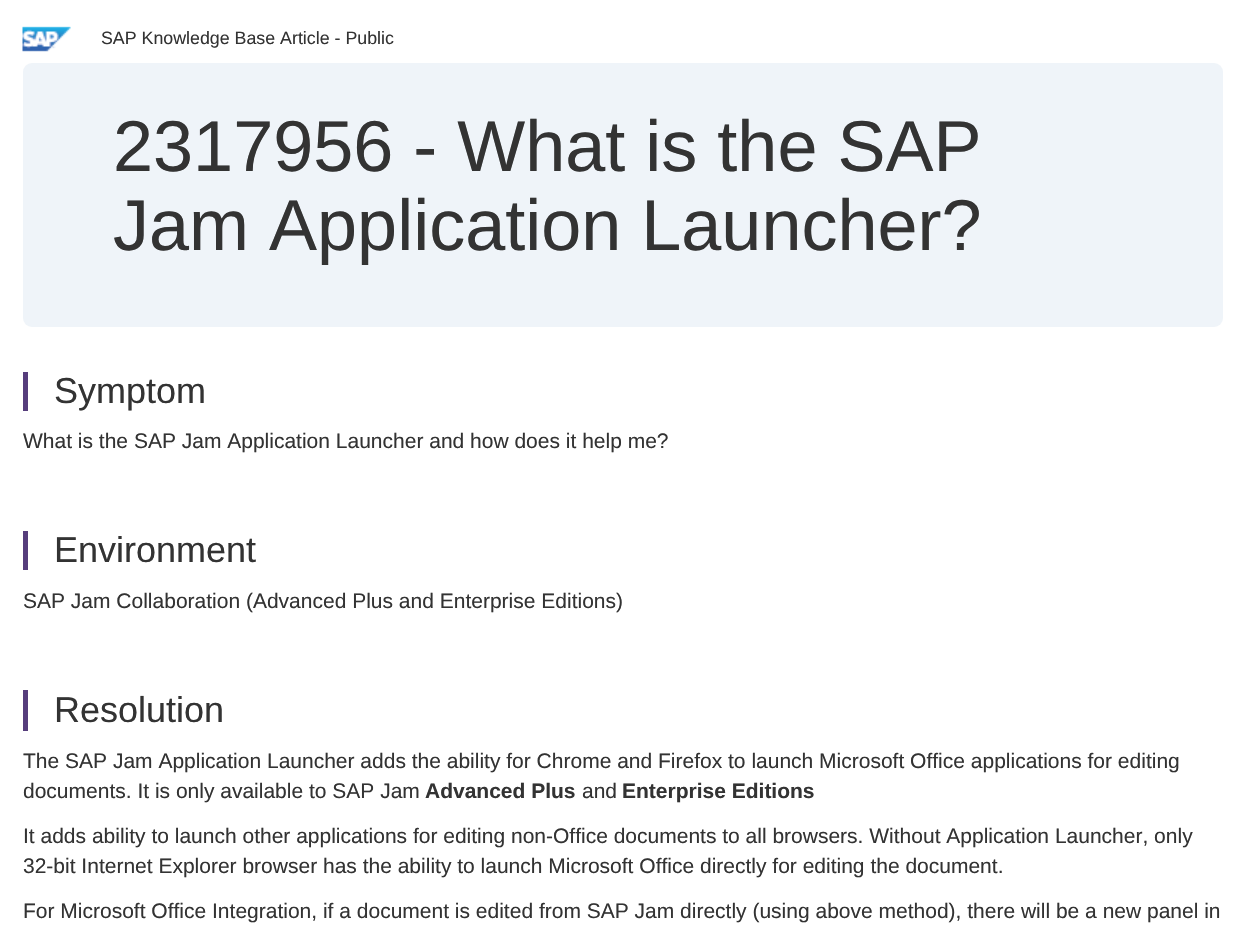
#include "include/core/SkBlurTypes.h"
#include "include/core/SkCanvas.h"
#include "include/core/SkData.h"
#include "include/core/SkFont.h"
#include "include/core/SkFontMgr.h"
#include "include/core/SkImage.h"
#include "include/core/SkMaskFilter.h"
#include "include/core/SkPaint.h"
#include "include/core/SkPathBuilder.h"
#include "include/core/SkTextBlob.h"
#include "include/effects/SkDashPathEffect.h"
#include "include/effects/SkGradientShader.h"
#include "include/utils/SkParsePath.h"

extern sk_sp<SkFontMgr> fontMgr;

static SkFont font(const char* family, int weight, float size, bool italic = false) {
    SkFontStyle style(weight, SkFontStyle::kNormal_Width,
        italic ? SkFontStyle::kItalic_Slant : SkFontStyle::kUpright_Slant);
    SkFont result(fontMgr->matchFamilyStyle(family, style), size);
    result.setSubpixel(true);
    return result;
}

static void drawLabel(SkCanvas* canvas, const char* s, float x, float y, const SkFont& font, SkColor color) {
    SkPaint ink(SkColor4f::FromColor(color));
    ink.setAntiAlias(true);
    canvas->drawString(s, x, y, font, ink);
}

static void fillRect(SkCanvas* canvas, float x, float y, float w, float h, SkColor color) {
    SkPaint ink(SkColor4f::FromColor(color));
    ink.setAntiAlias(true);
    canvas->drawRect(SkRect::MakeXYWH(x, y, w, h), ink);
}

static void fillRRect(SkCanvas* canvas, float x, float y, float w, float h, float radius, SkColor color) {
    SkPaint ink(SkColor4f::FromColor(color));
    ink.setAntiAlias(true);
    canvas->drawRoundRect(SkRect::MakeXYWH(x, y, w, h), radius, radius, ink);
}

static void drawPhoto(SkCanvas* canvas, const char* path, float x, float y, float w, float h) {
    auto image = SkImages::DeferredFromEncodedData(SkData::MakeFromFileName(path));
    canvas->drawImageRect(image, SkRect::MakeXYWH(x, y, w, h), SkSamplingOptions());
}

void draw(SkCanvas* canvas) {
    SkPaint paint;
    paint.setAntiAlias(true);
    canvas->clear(0xFFFFFFFF);
    drawPhoto(canvas, "assets/img1.png", 22, 26, 49, 26);
    SkFont font1 = font("Liberation Sans", 400, 17.8f);
    drawLabel(canvas, "SAP Knowledge Base Article - Public", 101, 44, font1, 0xFF333333);
    fillRRect(canvas, 23, 63, 1200, 264, 9, 0xFFEFF4F9);
    SkFont font2 = font("Liberation Sans", 400, 72);
    drawLabel(canvas, "2317956 - What is the SAP", 113, 171, font2, 0xFF333333);
    drawLabel(canvas, "Jam Application Launcher?", 113, 250, font2, 0xFF333333);
    fillRect(canvas, 23, 372, 5, 39, 0xFF563D7C);
    SkFont font3 = font("Liberation Sans", 400, 36);
    drawLabel(canvas, "Symptom", 54, 403, font3, 0xFF333333);
    SkFont font4 = font("Liberation Sans", 400, 21);
    drawLabel(canvas, "What is the SAP Jam Application Launcher and how does it help me?", 23, 448, font4, 0xFF333333);
    fillRect(canvas, 23, 531, 5, 39, 0xFF563D7C);
    drawLabel(canvas, "Environment", 54, 562, font3, 0xFF333333);
    drawLabel(canvas, "SAP Jam Collaboration (Advanced Plus and Enterprise Editions)", 23, 608, font4, 0xFF333333);
    fillRect(canvas, 23, 690, 5, 41, 0xFF563D7C);
    drawLabel(canvas, "Resolution", 54, 722, font3, 0xFF333333);
    drawLabel(canvas, "The SAP Jam Application Launcher adds the ability for Chrome and Firefox to launch Microsoft Office applications for editing", 23, 768, font4, 0xFF333333);
    drawLabel(canvas, "documents. It is only available to SAP Jam", 23, 798, font4, 0xFF333333);
    SkFont font5 = font("Liberation Sans", 700, 21);
    drawLabel(canvas, "Advanced Plus", 425, 798, font5, 0xFF333333);
    drawLabel(canvas, "and", 582, 798, font4, 0xFF333333);
    drawLabel(canvas, "Enterprise Editions", 622, 798, font5, 0xFF333333);
    drawLabel(canvas, "It adds ability to launch other applications for editing non-Office documents to all browsers. Without Application Launcher, only", 23, 843, font4, 0xFF333333);
    drawLabel(canvas, "32-bit Internet Explorer browser has the ability to launch Microsoft Office directly for editing the document.", 23, 873, font4, 0xFF333333);
    drawLabel(canvas, "For Microsoft Office Integration, if a document is edited from SAP Jam directly (using above method), there will be a new panel in", 23, 918, font4, 0xFF333333);
}
